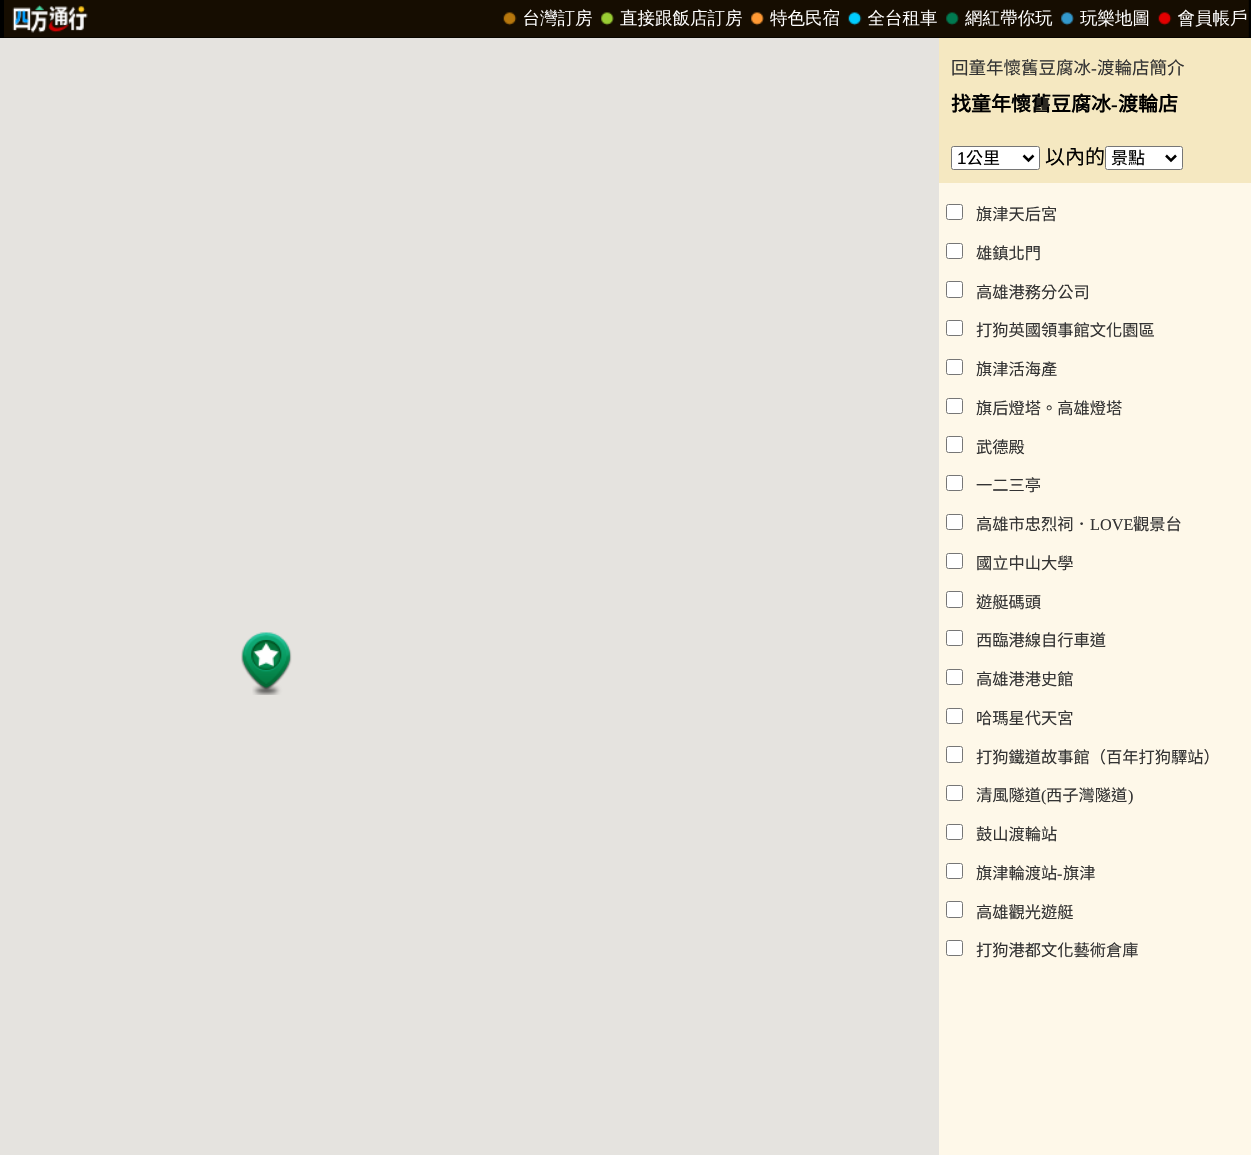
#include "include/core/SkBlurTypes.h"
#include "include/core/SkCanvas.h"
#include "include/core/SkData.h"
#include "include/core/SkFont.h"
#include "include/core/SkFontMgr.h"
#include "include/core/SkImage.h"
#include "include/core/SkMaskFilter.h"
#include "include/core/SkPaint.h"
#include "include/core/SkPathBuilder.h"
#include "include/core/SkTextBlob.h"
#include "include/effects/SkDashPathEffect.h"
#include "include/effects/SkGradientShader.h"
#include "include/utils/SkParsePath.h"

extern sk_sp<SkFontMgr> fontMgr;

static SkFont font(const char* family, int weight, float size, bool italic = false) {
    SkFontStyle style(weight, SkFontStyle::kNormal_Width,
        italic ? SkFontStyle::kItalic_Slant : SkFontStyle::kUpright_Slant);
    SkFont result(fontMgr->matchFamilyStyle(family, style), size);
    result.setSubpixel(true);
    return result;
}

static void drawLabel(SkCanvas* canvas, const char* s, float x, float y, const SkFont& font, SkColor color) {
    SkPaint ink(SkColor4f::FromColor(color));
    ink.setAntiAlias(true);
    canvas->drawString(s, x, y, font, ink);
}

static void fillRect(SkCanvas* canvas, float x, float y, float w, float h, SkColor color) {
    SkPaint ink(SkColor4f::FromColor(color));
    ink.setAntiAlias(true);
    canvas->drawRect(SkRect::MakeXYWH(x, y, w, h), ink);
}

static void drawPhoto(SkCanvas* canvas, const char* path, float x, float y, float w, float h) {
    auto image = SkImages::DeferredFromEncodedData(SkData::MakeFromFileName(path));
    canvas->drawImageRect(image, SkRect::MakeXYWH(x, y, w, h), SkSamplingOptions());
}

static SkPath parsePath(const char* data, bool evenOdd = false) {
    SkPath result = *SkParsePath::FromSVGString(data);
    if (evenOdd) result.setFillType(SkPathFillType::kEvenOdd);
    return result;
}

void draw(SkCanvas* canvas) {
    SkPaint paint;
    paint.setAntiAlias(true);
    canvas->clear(0xFF000000);
    drawPhoto(canvas, "assets/img1.png", 4, 0, 1245, 38);
    fillRect(canvas, 0, 38, 939, 1117, 0xFFE5E3DF);
    drawPhoto(canvas, "assets/img2.png", 241, 632, 51, 63);
    fillRect(canvas, 939, 183, 312, 972, 0xFFFEF8E9);
    fillRect(canvas, 939, 38, 312, 145, 0xFFF5E8C1);
    SkFont font1 = font("Noto Sans CJK TC", 400, 17.5f);
    drawLabel(canvas, "回童年懷舊豆腐冰", 951, 74, font1, 0xFF333333);
    SkFont font2 = font("Liberation Serif", 400, 17.5f);
    drawLabel(canvas, "-", 1091, 74, font2, 0xFF333333);
    drawLabel(canvas, "渡輪店簡介", 1097, 74, font1, 0xFF333333);
    SkFont font3 = font("Noto Sans CJK TC", 700, 20);
    drawLabel(canvas, "找童年懷舊豆腐冰", 951, 111, font3, 0xFF000000);
    SkFont font4 = font("Liberation Serif", 700, 20);
    drawLabel(canvas, "-", 1111, 111, font4, 0xFF000000);
    drawLabel(canvas, "渡輪店", 1118, 111, font3, 0xFF000000);
    paint.setColor(0xFFFFFFFF);
    canvas->drawRoundRect(SkRect::MakeXYWH(951.5f, 146.5f, 88, 23), 2, 2, paint);
    paint.setStroke(true);
    paint.setStrokeWidth(1);
    paint.setColor(0xFF767676);
    canvas->drawRoundRect(SkRect::MakeXYWH(951.5f, 146.5f, 88, 23), 2, 2, paint);
    paint.setStrokeWidth(2.5f);
    paint.setColor(0xFF000000);
    canvas->drawPath(parsePath("M1023.5 155.5L1028.5 160.5L1033.5 155.5"), paint);
    SkFont font5 = font("Liberation Sans", 400, 17);
    drawLabel(canvas, "1", 957, 164, font5, 0xFF000000);
    SkFont font6 = font("Noto Sans CJK TC", 400, 17);
    drawLabel(canvas, "公里", 966, 164, font6, 0xFF000000);
    SkFont font7 = font("Noto Sans CJK TC", 400, 20);
    drawLabel(canvas, "以內的", 1045, 164, font7, 0xFF000000);
    paint.setStroke(false);
    paint.setColor(0xFFFFFFFF);
    canvas->drawRoundRect(SkRect::MakeXYWH(1105.5f, 146.5f, 77, 23), 2, 2, paint);
    paint.setStroke(true);
    paint.setStrokeWidth(1);
    paint.setColor(0xFF767676);
    canvas->drawRoundRect(SkRect::MakeXYWH(1105.5f, 146.5f, 77, 23), 2, 2, paint);
    paint.setStrokeWidth(2.5f);
    paint.setColor(0xFF000000);
    canvas->drawPath(parsePath("M1166 155.5L1171 160.5L1176 155.5"), paint);
    drawLabel(canvas, "景點", 1111, 164, font6, 0xFF000000);
    paint.setStroke(false);
    paint.setColor(0xFFFFFFFF);
    canvas->drawRoundRect(SkRect::MakeXYWH(946.5f, 204.5f, 16, 15), 2, 2, paint);
    paint.setStroke(true);
    paint.setStrokeWidth(1);
    paint.setColor(0xFF767676);
    canvas->drawRoundRect(SkRect::MakeXYWH(946.5f, 204.5f, 16, 15), 2, 2, paint);
    SkFont font8 = font("Noto Sans CJK TC", 400, 16.25f);
    drawLabel(canvas, "旗津天后宮", 976, 220, font8, 0xFF333333);
    paint.setStroke(false);
    paint.setColor(0xFFFFFFFF);
    canvas->drawRoundRect(SkRect::MakeXYWH(946.5f, 243.5f, 16, 15), 2, 2, paint);
    paint.setStroke(true);
    paint.setColor(0xFF767676);
    canvas->drawRoundRect(SkRect::MakeXYWH(946.5f, 243.5f, 16, 15), 2, 2, paint);
    drawLabel(canvas, "雄鎮北門", 976, 259, font8, 0xFF333333);
    paint.setStroke(false);
    paint.setColor(0xFFFFFFFF);
    canvas->drawRoundRect(SkRect::MakeXYWH(946.5f, 281.5f, 16, 16), 2, 2, paint);
    paint.setStroke(true);
    paint.setColor(0xFF767676);
    canvas->drawRoundRect(SkRect::MakeXYWH(946.5f, 281.5f, 16, 16), 2, 2, paint);
    drawLabel(canvas, "高雄港務分公司", 976, 298, font8, 0xFF333333);
    paint.setStroke(false);
    paint.setColor(0xFFFFFFFF);
    canvas->drawRoundRect(SkRect::MakeXYWH(946.5f, 320.5f, 16, 15), 2, 2, paint);
    paint.setStroke(true);
    paint.setColor(0xFF767676);
    canvas->drawRoundRect(SkRect::MakeXYWH(946.5f, 320.5f, 16, 15), 2, 2, paint);
    drawLabel(canvas, "打狗英國領事館文化園區", 976, 336, font8, 0xFF333333);
    paint.setStroke(false);
    paint.setColor(0xFFFFFFFF);
    canvas->drawRoundRect(SkRect::MakeXYWH(946.5f, 359.5f, 16, 15), 2, 2, paint);
    paint.setStroke(true);
    paint.setColor(0xFF767676);
    canvas->drawRoundRect(SkRect::MakeXYWH(946.5f, 359.5f, 16, 15), 2, 2, paint);
    drawLabel(canvas, "旗津活海產", 976, 375, font8, 0xFF333333);
    paint.setStroke(false);
    paint.setColor(0xFFFFFFFF);
    canvas->drawRoundRect(SkRect::MakeXYWH(946.5f, 398.5f, 16, 15), 2, 2, paint);
    paint.setStroke(true);
    paint.setColor(0xFF767676);
    canvas->drawRoundRect(SkRect::MakeXYWH(946.5f, 398.5f, 16, 15), 2, 2, paint);
    drawLabel(canvas, "旗后燈塔。高雄燈塔", 976, 414, font8, 0xFF333333);
    paint.setStroke(false);
    paint.setColor(0xFFFFFFFF);
    canvas->drawRoundRect(SkRect::MakeXYWH(946.5f, 436.5f, 16, 16), 2, 2, paint);
    paint.setStroke(true);
    paint.setColor(0xFF767676);
    canvas->drawRoundRect(SkRect::MakeXYWH(946.5f, 436.5f, 16, 16), 2, 2, paint);
    drawLabel(canvas, "武德殿", 976, 453, font8, 0xFF333333);
    paint.setStroke(false);
    paint.setColor(0xFFFFFFFF);
    canvas->drawRoundRect(SkRect::MakeXYWH(946.5f, 475.5f, 16, 15), 2, 2, paint);
    paint.setStroke(true);
    paint.setColor(0xFF767676);
    canvas->drawRoundRect(SkRect::MakeXYWH(946.5f, 475.5f, 16, 15), 2, 2, paint);
    drawLabel(canvas, "一二三亭", 976, 491, font8, 0xFF333333);
    paint.setStroke(false);
    paint.setColor(0xFFFFFFFF);
    canvas->drawRoundRect(SkRect::MakeXYWH(946.5f, 514.5f, 16, 15), 2, 2, paint);
    paint.setStroke(true);
    paint.setColor(0xFF767676);
    canvas->drawRoundRect(SkRect::MakeXYWH(946.5f, 514.5f, 16, 15), 2, 2, paint);
    drawLabel(canvas, "高雄市忠烈祠．", 976, 530, font8, 0xFF333333);
    SkFont font9 = font("Liberation Serif", 400, 16.25f);
    drawLabel(canvas, "LOVE", 1090, 530, font9, 0xFF333333);
    drawLabel(canvas, "觀景台", 1133, 530, font8, 0xFF333333);
    paint.setStroke(false);
    paint.setColor(0xFFFFFFFF);
    canvas->drawRoundRect(SkRect::MakeXYWH(946.5f, 553.5f, 16, 15), 2, 2, paint);
    paint.setStroke(true);
    paint.setColor(0xFF767676);
    canvas->drawRoundRect(SkRect::MakeXYWH(946.5f, 553.5f, 16, 15), 2, 2, paint);
    drawLabel(canvas, "國立中山大學", 976, 569, font8, 0xFF333333);
    paint.setStroke(false);
    paint.setColor(0xFFFFFFFF);
    canvas->drawRoundRect(SkRect::MakeXYWH(946.5f, 591.5f, 16, 16), 2, 2, paint);
    paint.setStroke(true);
    paint.setColor(0xFF767676);
    canvas->drawRoundRect(SkRect::MakeXYWH(946.5f, 591.5f, 16, 16), 2, 2, paint);
    drawLabel(canvas, "遊艇碼頭", 976, 608, font8, 0xFF333333);
    paint.setStroke(false);
    paint.setColor(0xFFFFFFFF);
    canvas->drawRoundRect(SkRect::MakeXYWH(946.5f, 630.5f, 16, 15), 2, 2, paint);
    paint.setStroke(true);
    paint.setColor(0xFF767676);
    canvas->drawRoundRect(SkRect::MakeXYWH(946.5f, 630.5f, 16, 15), 2, 2, paint);
    drawLabel(canvas, "西臨港線自行車道", 976, 646, font8, 0xFF333333);
    paint.setStroke(false);
    paint.setColor(0xFFFFFFFF);
    canvas->drawRoundRect(SkRect::MakeXYWH(946.5f, 669.5f, 16, 15), 2, 2, paint);
    paint.setStroke(true);
    paint.setColor(0xFF767676);
    canvas->drawRoundRect(SkRect::MakeXYWH(946.5f, 669.5f, 16, 15), 2, 2, paint);
    drawLabel(canvas, "高雄港港史館", 976, 685, font8, 0xFF333333);
    paint.setStroke(false);
    paint.setColor(0xFFFFFFFF);
    canvas->drawRoundRect(SkRect::MakeXYWH(946.5f, 708.5f, 16, 15), 2, 2, paint);
    paint.setStroke(true);
    paint.setColor(0xFF767676);
    canvas->drawRoundRect(SkRect::MakeXYWH(946.5f, 708.5f, 16, 15), 2, 2, paint);
    drawLabel(canvas, "哈瑪星代天宮", 976, 724, font8, 0xFF333333);
    paint.setStroke(false);
    paint.setColor(0xFFFFFFFF);
    canvas->drawRoundRect(SkRect::MakeXYWH(946.5f, 746.5f, 16, 16), 2, 2, paint);
    paint.setStroke(true);
    paint.setColor(0xFF767676);
    canvas->drawRoundRect(SkRect::MakeXYWH(946.5f, 746.5f, 16, 16), 2, 2, paint);
    drawLabel(canvas, "打狗鐵道故事館（百年打狗驛站）", 976, 763, font8, 0xFF333333);
    paint.setStroke(false);
    paint.setColor(0xFFFFFFFF);
    canvas->drawRoundRect(SkRect::MakeXYWH(946.5f, 785.5f, 16, 15), 2, 2, paint);
    paint.setStroke(true);
    paint.setColor(0xFF767676);
    canvas->drawRoundRect(SkRect::MakeXYWH(946.5f, 785.5f, 16, 15), 2, 2, paint);
    drawLabel(canvas, "清風隧道", 976, 801, font8, 0xFF333333);
    drawLabel(canvas, "(", 1041, 801, font9, 0xFF333333);
    drawLabel(canvas, "西子灣隧道", 1046, 801, font8, 0xFF333333);
    drawLabel(canvas, ")", 1128, 801, font9, 0xFF333333);
    paint.setStroke(false);
    paint.setColor(0xFFFFFFFF);
    canvas->drawRoundRect(SkRect::MakeXYWH(946.5f, 824.5f, 16, 15), 2, 2, paint);
    paint.setStroke(true);
    paint.setColor(0xFF767676);
    canvas->drawRoundRect(SkRect::MakeXYWH(946.5f, 824.5f, 16, 15), 2, 2, paint);
    drawLabel(canvas, "鼓山渡輪站", 976, 840, font8, 0xFF333333);
    paint.setStroke(false);
    paint.setColor(0xFFFFFFFF);
    canvas->drawRoundRect(SkRect::MakeXYWH(946.5f, 863.5f, 16, 15), 2, 2, paint);
    paint.setStroke(true);
    paint.setColor(0xFF767676);
    canvas->drawRoundRect(SkRect::MakeXYWH(946.5f, 863.5f, 16, 15), 2, 2, paint);
    drawLabel(canvas, "旗津輪渡站", 976, 879, font8, 0xFF333333);
    drawLabel(canvas, "-", 1057, 879, font9, 0xFF333333);
    drawLabel(canvas, "旗津", 1063, 879, font8, 0xFF333333);
    paint.setStroke(false);
    paint.setColor(0xFFFFFFFF);
    canvas->drawRoundRect(SkRect::MakeXYWH(946.5f, 901.5f, 16, 16), 2, 2, paint);
    paint.setStroke(true);
    paint.setColor(0xFF767676);
    canvas->drawRoundRect(SkRect::MakeXYWH(946.5f, 901.5f, 16, 16), 2, 2, paint);
    drawLabel(canvas, "高雄觀光遊艇", 976, 918, font8, 0xFF333333);
    paint.setStroke(false);
    paint.setColor(0xFFFFFFFF);
    canvas->drawRoundRect(SkRect::MakeXYWH(946.5f, 940.5f, 16, 15), 2, 2, paint);
    paint.setStroke(true);
    paint.setColor(0xFF767676);
    canvas->drawRoundRect(SkRect::MakeXYWH(946.5f, 940.5f, 16, 15), 2, 2, paint);
    drawLabel(canvas, "打狗港都文化藝術倉庫", 976, 956, font8, 0xFF333333);
}
